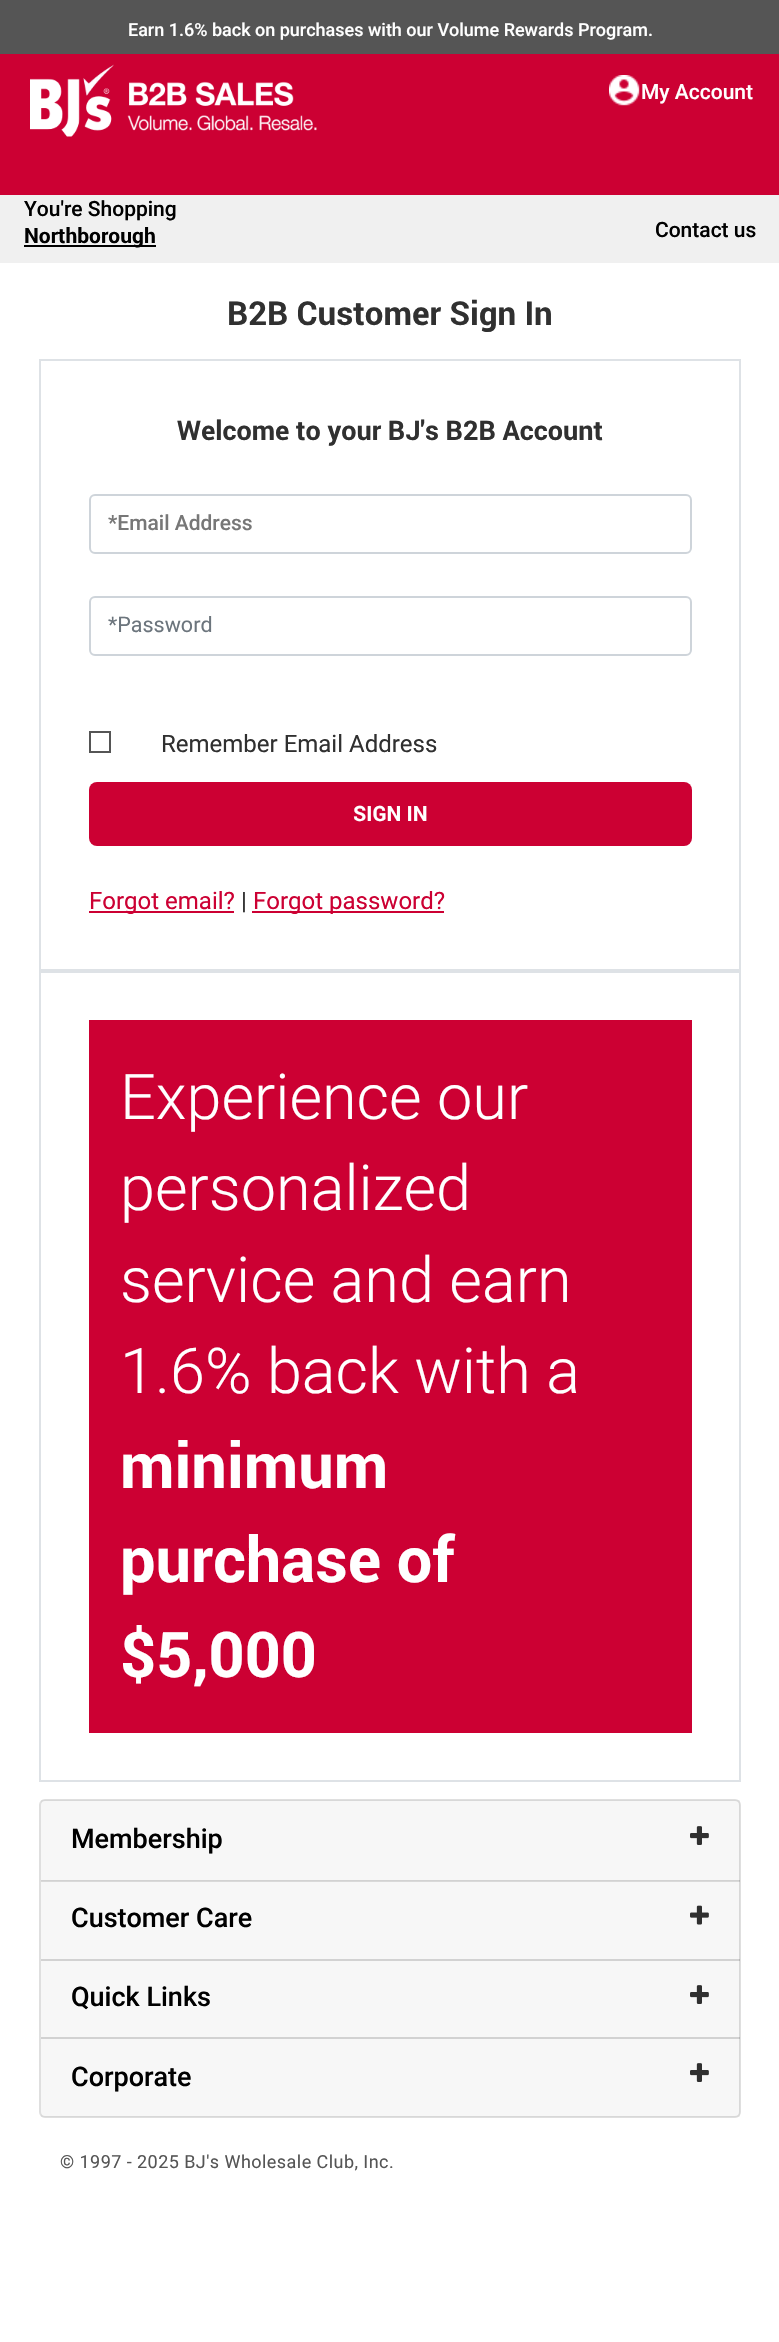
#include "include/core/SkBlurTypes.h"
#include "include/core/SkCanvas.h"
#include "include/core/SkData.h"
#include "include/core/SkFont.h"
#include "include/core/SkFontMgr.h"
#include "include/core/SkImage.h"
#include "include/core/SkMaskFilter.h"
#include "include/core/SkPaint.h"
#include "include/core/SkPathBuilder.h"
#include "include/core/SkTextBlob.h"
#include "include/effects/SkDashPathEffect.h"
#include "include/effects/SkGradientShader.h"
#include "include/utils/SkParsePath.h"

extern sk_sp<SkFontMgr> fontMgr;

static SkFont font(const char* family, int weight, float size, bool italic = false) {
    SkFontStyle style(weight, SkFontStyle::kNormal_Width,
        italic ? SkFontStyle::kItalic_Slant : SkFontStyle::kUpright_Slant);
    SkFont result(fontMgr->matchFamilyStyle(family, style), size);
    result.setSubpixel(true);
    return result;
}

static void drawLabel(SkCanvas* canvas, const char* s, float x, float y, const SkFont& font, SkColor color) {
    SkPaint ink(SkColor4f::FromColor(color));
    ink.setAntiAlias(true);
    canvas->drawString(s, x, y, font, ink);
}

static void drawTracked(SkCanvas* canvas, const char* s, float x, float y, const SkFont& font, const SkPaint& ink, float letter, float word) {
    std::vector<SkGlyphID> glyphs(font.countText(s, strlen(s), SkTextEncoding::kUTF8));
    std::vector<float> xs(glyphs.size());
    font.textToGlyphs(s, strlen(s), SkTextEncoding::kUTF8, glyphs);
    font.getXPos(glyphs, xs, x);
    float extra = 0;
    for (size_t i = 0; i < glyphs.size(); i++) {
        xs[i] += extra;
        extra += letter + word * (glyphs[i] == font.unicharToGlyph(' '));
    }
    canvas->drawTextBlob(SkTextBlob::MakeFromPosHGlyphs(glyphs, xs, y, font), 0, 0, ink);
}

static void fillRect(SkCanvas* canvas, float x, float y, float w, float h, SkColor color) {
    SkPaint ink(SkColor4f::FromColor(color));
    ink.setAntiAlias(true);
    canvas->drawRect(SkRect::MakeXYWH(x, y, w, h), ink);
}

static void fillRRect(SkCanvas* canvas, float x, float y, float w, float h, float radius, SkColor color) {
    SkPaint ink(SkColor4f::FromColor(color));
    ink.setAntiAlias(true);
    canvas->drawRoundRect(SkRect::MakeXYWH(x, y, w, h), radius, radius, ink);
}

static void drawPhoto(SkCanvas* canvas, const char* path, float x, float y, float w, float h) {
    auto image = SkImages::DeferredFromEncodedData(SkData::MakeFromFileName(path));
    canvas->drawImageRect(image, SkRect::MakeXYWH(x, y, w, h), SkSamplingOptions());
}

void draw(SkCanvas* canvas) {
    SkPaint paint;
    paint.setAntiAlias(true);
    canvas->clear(0xFFFFFFFF);
    fillRect(canvas, 0, 0, 779, 54, 0xFF555555);
    SkFont font1 = font("Roboto", 500, 18);
    drawLabel(canvas, "Earn 1.6% back on purchases with our Volume Rewards Program.", 128, 36, font1, 0xFFFFFFFF);
    fillRect(canvas, 0, 54, 779, 141, 0xFFCC0033);
    drawPhoto(canvas, "assets/img1.png", 30, 64, 287, 73);
    drawPhoto(canvas, "assets/img2.png", 609, 75, 31, 31);
    SkFont font2 = font("Roboto", 500, 21);
    drawLabel(canvas, "My Account", 641, 99, font2, 0xFFFFFFFF);
    fillRect(canvas, 0, 195, 779, 68, 0xFFF0F0F0);
    drawLabel(canvas, "You're Shopping", 24, 216, font2, 0xFF000000);
    fillRect(canvas, 24, 245, 132, 2, 0xFF000000);
    SkFont font3 = font("Roboto", 700, 21);
    drawLabel(canvas, "Northborough", 24, 243, font3, 0xFF000000);
    drawLabel(canvas, "Contact us", 655, 237, font2, 0xFF000000);
    SkFont font4 = font("Roboto", 700, 33);
    drawLabel(canvas, "B2B Customer Sign In", 227, 325, font4, 0xFF303030);
    paint.setStroke(true);
    paint.setStrokeWidth(2);
    paint.setColor(0xFFDEE2E6);
    canvas->drawRect(SkRect::MakeXYWH(40, 360, 700, 610), paint);
    SkFont font5 = font("Roboto", 700, 27);
    drawLabel(canvas, "Welcome to your BJ's B2B Account", 177, 440, font5, 0xFF303030);
    paint.setColor(0xFFCED4DA);
    canvas->drawRoundRect(SkRect::MakeXYWH(90, 495, 601, 58), 5, 5, paint);
    drawLabel(canvas, "*Email Address", 108, 530, font2, 0xFF777777);
    canvas->drawRoundRect(SkRect::MakeXYWH(90, 597, 601, 58), 5, 5, paint);
    SkFont font6 = font("Roboto", 400, 21.5f);
    drawLabel(canvas, "*Password", 108, 632, font6, 0xFF6C757D);
    paint.setColor(0xFF555555);
    canvas->drawRect(SkRect::MakeXYWH(90, 732, 20, 20), paint);
    SkFont font7 = font("Roboto", 400, 24);
    drawLabel(canvas, "Remember Email Address", 161, 752, font7, 0xFF303030);
    fillRRect(canvas, 89, 782, 603, 64, 8, 0xFFCC0033);
    drawLabel(canvas, "SIGN IN", 353, 821, font3, 0xFFFFFFFF);
    fillRect(canvas, 89, 911, 145, 2, 0xFFCC0033);
    drawLabel(canvas, "Forgot email?", 89, 909, font7, 0xFFCC0033);
    drawLabel(canvas, "|", 241, 909, font7, 0xFF303030);
    fillRect(canvas, 252, 911, 192, 2, 0xFFCC0033);
    drawLabel(canvas, "Forgot password?", 253, 909, font7, 0xFFCC0033);
    paint.setColor(0xFFDEE2E6);
    canvas->drawRect(SkRect::MakeXYWH(40, 972, 700, 809), paint);
    fillRect(canvas, 89, 1020, 603, 713, 0xFFCC0033);
    SkFont font8 = font("Roboto", 300, 63);
    drawLabel(canvas, "Experience our", 120, 1119, font8, 0xFFFFFFFF);
    drawLabel(canvas, "personalized", 120, 1210, font8, 0xFFFFFFFF);
    drawLabel(canvas, "service and earn", 120, 1302, font8, 0xFFFFFFFF);
    drawLabel(canvas, "1.6% back with a", 120, 1393, font8, 0xFFFFFFFF);
    SkFont font9 = font("Roboto", 700, 63);
    drawLabel(canvas, "minimum", 120, 1488, font9, 0xFFFFFFFF);
    drawLabel(canvas, "purchase of", 120, 1582, font9, 0xFFFFFFFF);
    drawLabel(canvas, "$5,000", 120, 1677, font9, 0xFFFFFFFF);
    paint.setColor(0xFFDFDFDF);
    canvas->drawRoundRect(SkRect::MakeXYWH(40, 1800, 700, 317), 5, 5, paint);
    fillRect(canvas, 41, 1800, 699, 81, 0x08000000);
    fillRect(canvas, 41, 1880, 699, 2, 0x1F000000);
    SkFont font10 = font("Roboto", 500, 27);
    drawLabel(canvas, "Membership", 71, 1848, font10, 0xFF000000);
    drawPhoto(canvas, "assets/img3.png", 690, 1826, 19, 19);
    fillRect(canvas, 41, 1880, 699, 81, 0x08000000);
    fillRect(canvas, 41, 1959, 699, 2, 0x1F000000);
    drawLabel(canvas, "Customer Care", 71, 1927, font10, 0xFF000000);
    drawPhoto(canvas, "assets/img4.png", 690, 1905, 19, 20);
    fillRect(canvas, 41, 1959, 699, 80, 0x08000000);
    fillRect(canvas, 41, 2037, 699, 2, 0x1F000000);
    drawLabel(canvas, "Quick Links", 71, 2006, font10, 0xFF000000);
    drawPhoto(canvas, "assets/img3.png", 690, 1985, 19, 19);
    fillRect(canvas, 41, 2037, 699, 80, 0x08000000);
    drawLabel(canvas, "Corporate", 71, 2086, font10, 0xFF000000);
    drawPhoto(canvas, "assets/img3.png", 690, 2063, 19, 19);
    SkFont font11 = font("Roboto", 400, 18);
    paint.setStroke(false);
    paint.setColor(0xFF555555);
    drawTracked(canvas, "© 1997 - 2025 BJ's Wholesale Club, Inc.", 60, 2168, font11, paint, 0.45f, 0);
}
